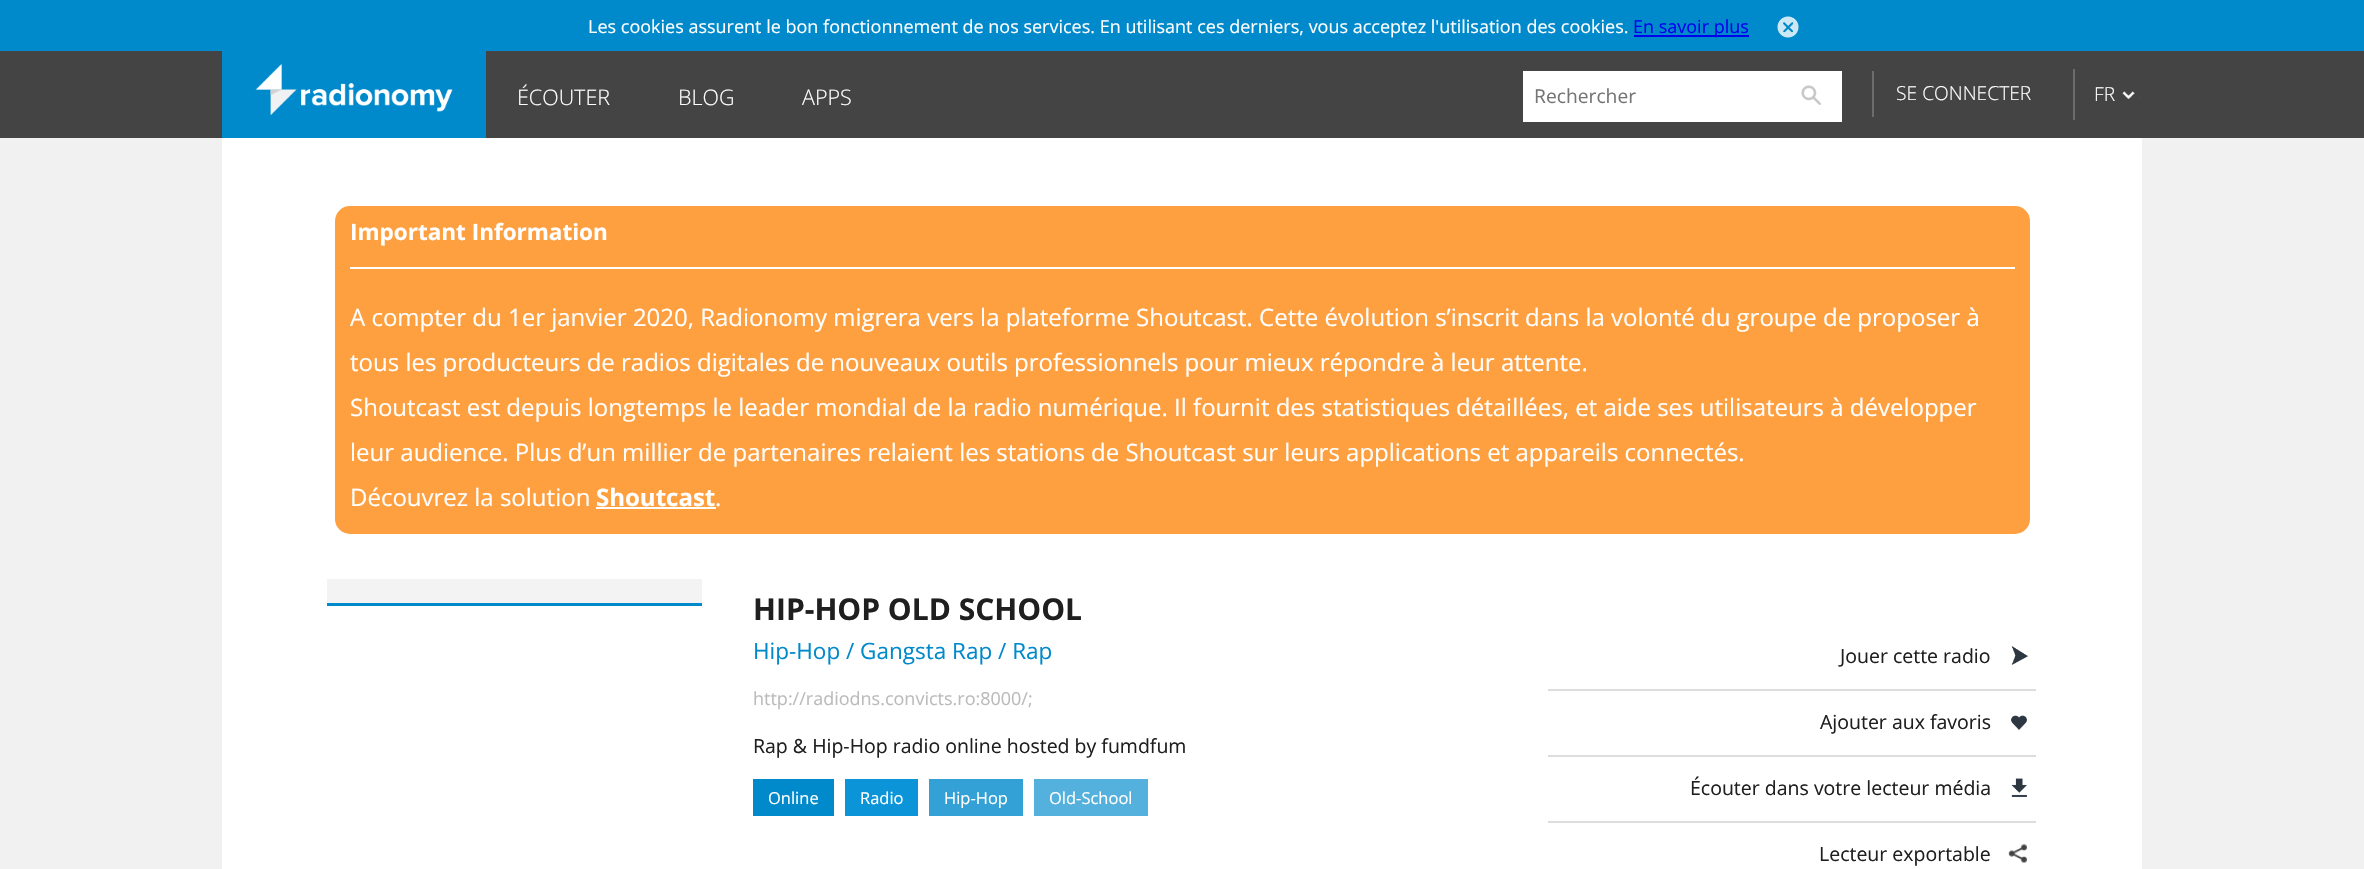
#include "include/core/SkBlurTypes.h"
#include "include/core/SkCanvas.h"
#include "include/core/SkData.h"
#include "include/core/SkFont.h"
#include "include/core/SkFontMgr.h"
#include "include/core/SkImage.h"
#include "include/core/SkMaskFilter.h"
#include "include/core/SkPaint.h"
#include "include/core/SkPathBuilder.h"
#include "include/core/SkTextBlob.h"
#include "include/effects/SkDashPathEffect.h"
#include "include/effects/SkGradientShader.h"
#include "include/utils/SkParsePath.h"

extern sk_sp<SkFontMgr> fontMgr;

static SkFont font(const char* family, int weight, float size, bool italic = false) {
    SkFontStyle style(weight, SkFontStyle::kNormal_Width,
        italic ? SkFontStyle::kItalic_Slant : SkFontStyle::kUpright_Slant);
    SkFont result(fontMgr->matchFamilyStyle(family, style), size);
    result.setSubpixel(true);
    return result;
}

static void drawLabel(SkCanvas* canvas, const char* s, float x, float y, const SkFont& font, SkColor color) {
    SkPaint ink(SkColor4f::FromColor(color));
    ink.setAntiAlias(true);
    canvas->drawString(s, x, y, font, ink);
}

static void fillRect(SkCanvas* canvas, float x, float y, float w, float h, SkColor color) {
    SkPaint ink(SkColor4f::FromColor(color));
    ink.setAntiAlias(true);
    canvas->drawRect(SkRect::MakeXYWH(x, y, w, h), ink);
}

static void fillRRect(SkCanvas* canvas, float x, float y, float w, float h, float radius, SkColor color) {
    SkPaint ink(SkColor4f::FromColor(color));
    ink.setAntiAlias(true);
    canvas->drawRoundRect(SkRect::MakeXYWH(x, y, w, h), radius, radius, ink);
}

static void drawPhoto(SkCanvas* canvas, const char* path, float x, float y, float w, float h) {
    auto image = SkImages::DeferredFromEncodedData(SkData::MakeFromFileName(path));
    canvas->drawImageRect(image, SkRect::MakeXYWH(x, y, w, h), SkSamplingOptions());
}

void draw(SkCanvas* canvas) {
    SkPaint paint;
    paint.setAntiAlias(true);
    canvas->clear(0xFFF1F1F1);
    fillRect(canvas, 0, 0, 2364, 51, 0xFF0089CB);
    SkFont font1 = font("Open Sans", 400, 18);
    drawLabel(canvas, "Les cookies assurent le bon fonctionnement de nos services. En utilisant ces derniers, vous acceptez l'utilisation des cookies.", 588, 33, font1, 0xFFFFFFFF);
    fillRect(canvas, 1634, 35, 115, 2, 0xFF0000EE);
    drawLabel(canvas, "En savoir plus", 1633, 33, font1, 0xFF0000EE);
    drawPhoto(canvas, "assets/img1.png", 1777, 16, 22, 22);
    fillRect(canvas, 0, 51, 2364, 87, 0xFF444444);
    fillRect(canvas, 222, 51, 264, 87, 0xFF0089CB);
    drawPhoto(canvas, "assets/img2.png", 255, 64, 198, 52);
    SkFont font2 = font("Open Sans", 300, 21.5f);
    drawLabel(canvas, "ÉCOUTER", 517, 105, font2, 0xFFFFFFFF);
    drawLabel(canvas, "BLOG", 678, 105, font2, 0xFFFFFFFF);
    drawLabel(canvas, "APPS", 802, 105, font2, 0xFFFFFFFF);
    fillRect(canvas, 1523, 71, 319, 51, 0xFFFFFFFF);
    SkFont font3 = font("Open Sans", 400, 19.25f);
    drawLabel(canvas, "Rechercher", 1534, 103, font3, 0xFF757575);
    drawPhoto(canvas, "assets/img3.png", 1801, 85, 20, 25);
    fillRect(canvas, 1872, 71, 2, 46, 0xFF6C6C6C);
    SkFont font4 = font("Open Sans", 300, 19.25f);
    drawLabel(canvas, "SE CONNECTER", 1896, 100, font4, 0xFFFFFFFF);
    fillRect(canvas, 2073, 69, 2, 51, 0xFF6C6C6C);
    drawPhoto(canvas, "assets/img4.png", 2122, 91, 18, 8);
    drawLabel(canvas, "FR", 2094, 101, font4, 0xFFFFFFFF);
    fillRect(canvas, 222, 138, 1920, 731, 0xFFFFFFFF);
    fillRRect(canvas, 335, 206, 1695, 328, 15, 0xFFFFA040);
    SkFont font5 = font("Open Sans", 700, 22.5f);
    drawLabel(canvas, "Important Information", 350, 240, font5, 0xFFFFFFFF);
    fillRect(canvas, 350, 267, 1665, 2, 0xFFFFFFFF);
    SkFont font6 = font("Open Sans", 400, 24);
    drawLabel(canvas, "A compter du 1er janvier 2020, Radionomy migrera vers la plateforme Shoutcast. Cette évolution s’inscrit dans la volonté du groupe de proposer à", 350, 326, font6, 0xFFFFFFFF);
    drawLabel(canvas, "tous les producteurs de radios digitales de nouveaux outils professionnels pour mieux répondre à leur attente.", 350, 371, font6, 0xFFFFFFFF);
    drawLabel(canvas, "Shoutcast est depuis longtemps le leader mondial de la radio numérique. Il fournit des statistiques détaillées, et aide ses utilisateurs à développer", 350, 416, font6, 0xFFFFFFFF);
    drawLabel(canvas, "leur audience. Plus d’un millier de partenaires relaient les stations de Shoutcast sur leurs applications et appareils connectés.", 350, 461, font6, 0xFFFFFFFF);
    drawLabel(canvas, "Découvrez la solution", 350, 506, font6, 0xFFFFFFFF);
    SkFont font7 = font("Open Sans", 700, 24);
    drawLabel(canvas, "Shoutcast", 596, 506, font7, 0xFFFFFFFF);
    fillRect(canvas, 596, 507, 120, 2, 0xFFFFFFFF);
    drawLabel(canvas, ".", 715, 506, font6, 0xFFFFFFFF);
    fillRect(canvas, 327, 579, 375, 24, 0xFFF3F3F3);
    fillRect(canvas, 327, 603, 375, 3, 0xFF0089CB);
    SkFont font8 = font("Open Sans", 700, 30);
    drawLabel(canvas, "HIP-HOP OLD SCHOOL", 753, 620, font8, 0xFF1F1F1F);
    SkFont font9 = font("Open Sans", 400, 22.5f);
    drawLabel(canvas, "Hip-Hop / Gangsta Rap / Rap", 753, 659, font9, 0xFF0089CB);
    drawLabel(canvas, "http://radiodns.convicts.ro:8000/;", 753, 705, font1, 0xFFBBBBBB);
    SkFont font10 = font("Open Sans", 400, 19.5f);
    drawLabel(canvas, "Rap & Hip-Hop radio online hosted by fumdfum", 753, 753, font10, 0xFF1F1F1F);
    fillRect(canvas, 753, 779, 81, 37, 0xFF0089CB);
    SkFont font11 = font("Open Sans", 400, 16.5f);
    drawLabel(canvas, "Online", 768, 804, font11, 0xFFFFFFFF);
    fillRect(canvas, 845, 779, 73, 37, 0xFF0B95D8);
    drawLabel(canvas, "Radio", 860, 804, font11, 0xFFFFFFFF);
    fillRect(canvas, 929, 779, 94, 37, 0xFF33A1D5);
    drawLabel(canvas, "Hip-Hop", 944, 804, font11, 0xFFFFFFFF);
    fillRect(canvas, 1034, 779, 114, 37, 0xFF54B0DC);
    drawLabel(canvas, "Old-School", 1049, 804, font11, 0xFFFFFFFF);
    fillRect(canvas, 1548, 689, 488, 2, 0xFFDDDDDD);
    drawLabel(canvas, "Jouer cette radio", 1840, 663, font10, 0xFF1F1F1F);
    drawPhoto(canvas, "assets/img5.png", 2011, 646, 17, 19);
    fillRect(canvas, 1548, 755, 488, 2, 0xFFDDDDDD);
    drawLabel(canvas, "Ajouter aux favoris", 1820, 729, font10, 0xFF1F1F1F);
    drawPhoto(canvas, "assets/img6.png", 2011, 715, 16, 15);
    fillRect(canvas, 1548, 821, 488, 2, 0xFFDDDDDD);
    drawLabel(canvas, "Écouter dans votre lecteur média", 1690, 795, font10, 0xFF1F1F1F);
    drawPhoto(canvas, "assets/img7.png", 2011, 778, 16, 19);
    drawLabel(canvas, "Lecteur exportable", 1819, 861, font10, 0xFF1F1F1F);
    drawPhoto(canvas, "assets/img8.png", 2008, 844, 23, 19);
}
